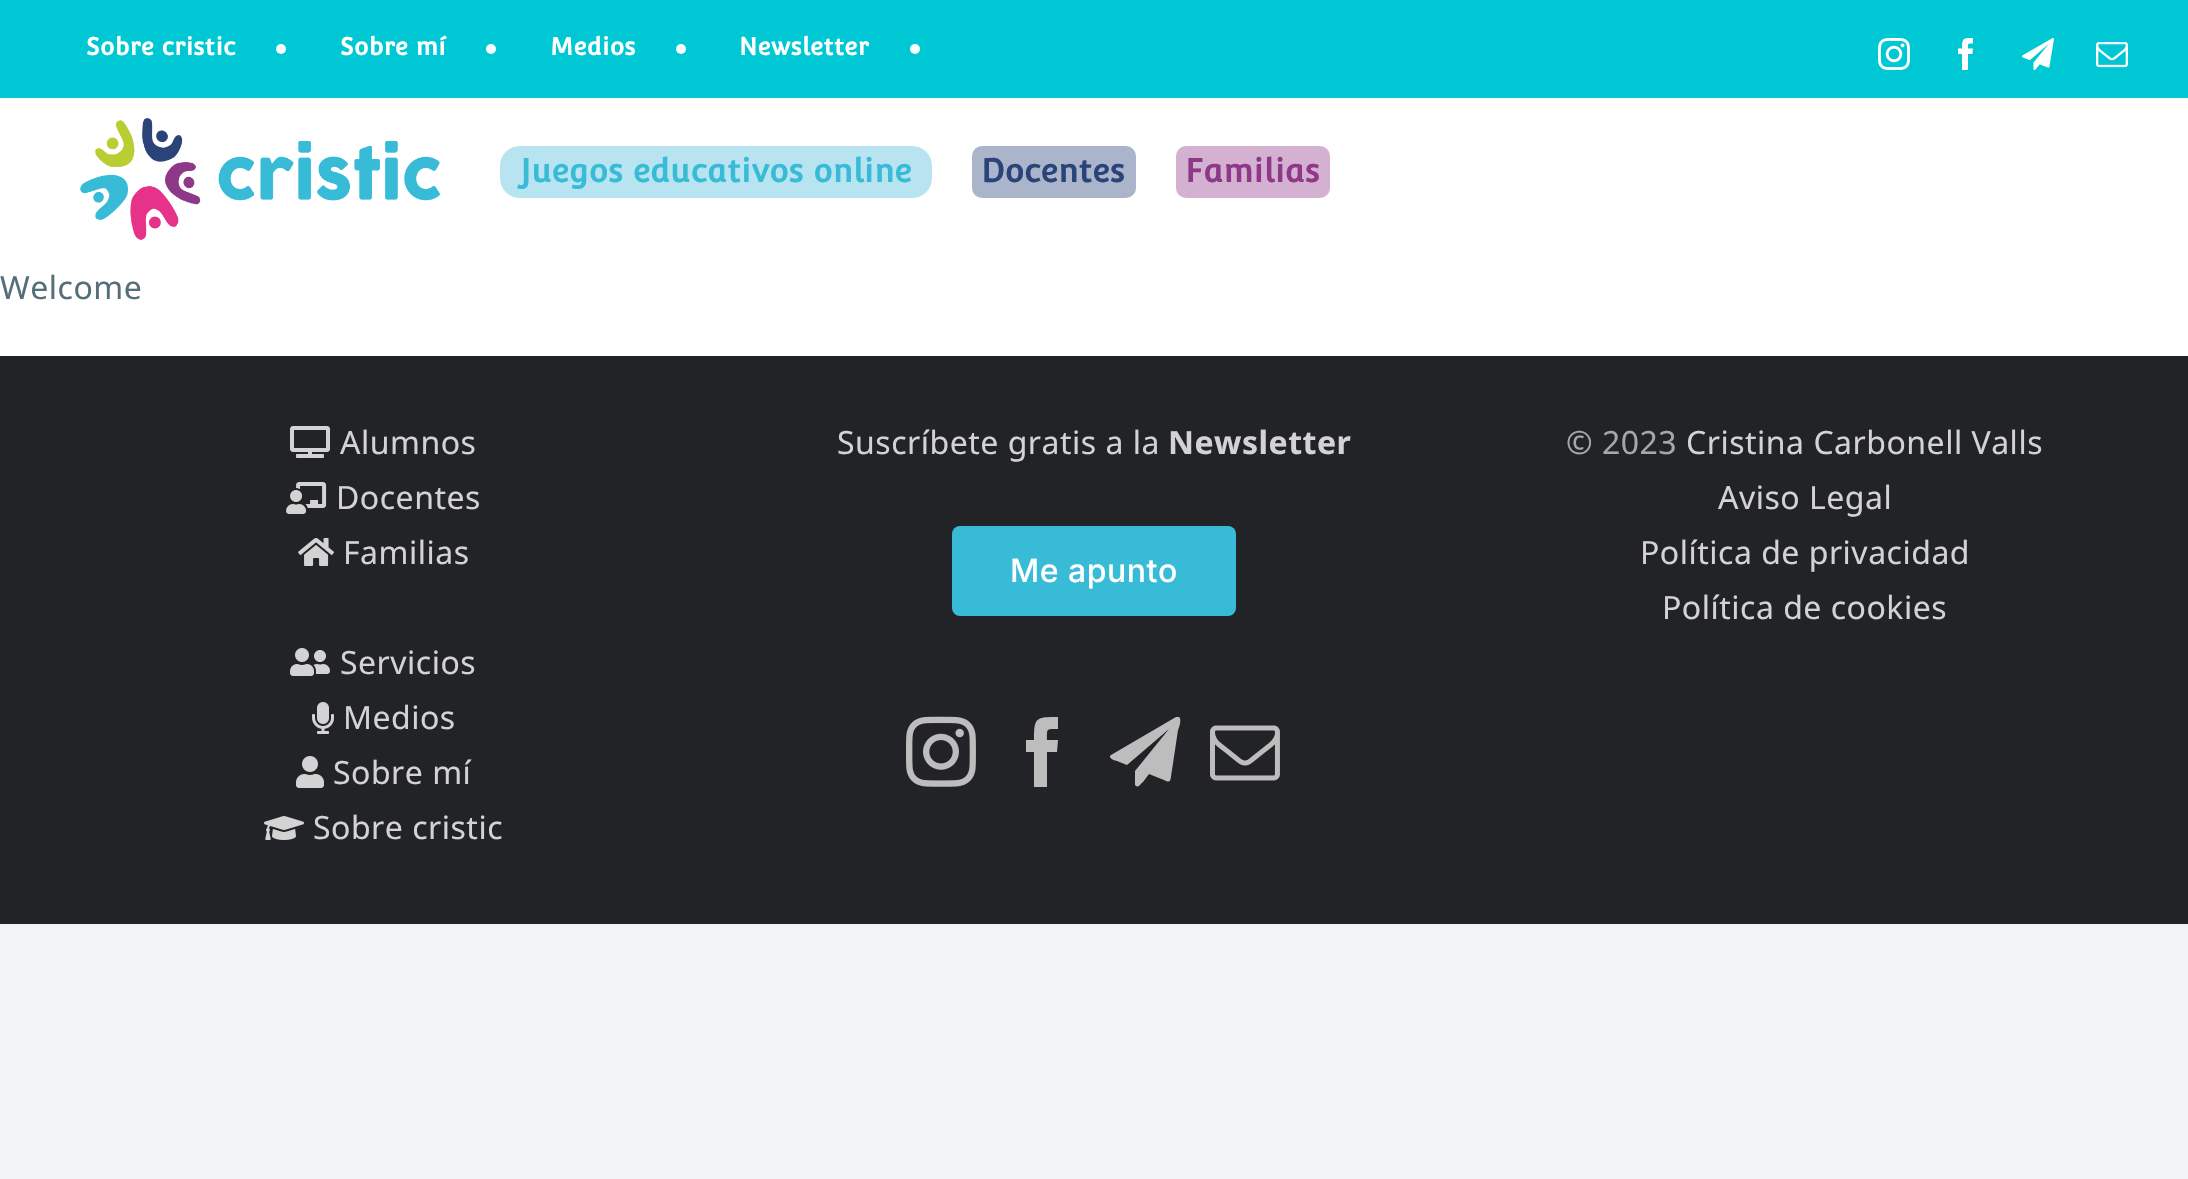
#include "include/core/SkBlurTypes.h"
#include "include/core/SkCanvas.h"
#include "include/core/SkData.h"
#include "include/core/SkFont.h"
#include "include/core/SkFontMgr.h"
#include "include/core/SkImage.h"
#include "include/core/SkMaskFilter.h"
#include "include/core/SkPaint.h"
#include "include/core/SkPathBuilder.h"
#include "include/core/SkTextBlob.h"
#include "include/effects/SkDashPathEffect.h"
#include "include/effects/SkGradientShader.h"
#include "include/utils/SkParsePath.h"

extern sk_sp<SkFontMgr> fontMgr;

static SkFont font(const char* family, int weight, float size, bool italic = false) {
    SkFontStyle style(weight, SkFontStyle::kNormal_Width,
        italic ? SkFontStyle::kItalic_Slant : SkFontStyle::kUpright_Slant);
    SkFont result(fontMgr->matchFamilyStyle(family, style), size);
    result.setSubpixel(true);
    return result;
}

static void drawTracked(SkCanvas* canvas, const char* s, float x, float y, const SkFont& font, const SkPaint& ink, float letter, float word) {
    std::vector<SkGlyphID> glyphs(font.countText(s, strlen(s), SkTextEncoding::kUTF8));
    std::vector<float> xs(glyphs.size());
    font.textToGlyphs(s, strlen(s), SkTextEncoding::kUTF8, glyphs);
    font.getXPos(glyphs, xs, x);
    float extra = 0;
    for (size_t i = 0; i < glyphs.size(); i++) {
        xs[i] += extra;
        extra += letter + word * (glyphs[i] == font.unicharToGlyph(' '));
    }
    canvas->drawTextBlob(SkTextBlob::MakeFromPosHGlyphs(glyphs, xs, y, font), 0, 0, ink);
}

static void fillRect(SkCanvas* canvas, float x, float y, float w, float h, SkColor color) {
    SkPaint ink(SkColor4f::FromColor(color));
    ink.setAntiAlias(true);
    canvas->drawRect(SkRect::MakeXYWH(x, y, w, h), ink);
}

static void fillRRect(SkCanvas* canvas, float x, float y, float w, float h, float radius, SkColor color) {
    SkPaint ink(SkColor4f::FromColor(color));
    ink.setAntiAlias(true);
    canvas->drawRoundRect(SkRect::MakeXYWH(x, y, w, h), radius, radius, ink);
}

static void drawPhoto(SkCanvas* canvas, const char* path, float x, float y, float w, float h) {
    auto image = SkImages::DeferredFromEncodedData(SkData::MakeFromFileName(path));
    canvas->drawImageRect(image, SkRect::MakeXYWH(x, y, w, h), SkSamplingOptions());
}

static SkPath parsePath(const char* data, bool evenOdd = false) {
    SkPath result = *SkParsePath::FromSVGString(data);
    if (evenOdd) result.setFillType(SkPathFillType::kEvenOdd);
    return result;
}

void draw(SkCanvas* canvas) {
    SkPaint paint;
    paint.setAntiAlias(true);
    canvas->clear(0xFFF2F3F5);
    fillRect(canvas, 0, 98, 2188, 258, 0xFFFFFFFF);
    fillRect(canvas, 0, 0, 2188, 98, 0xFF00C7D4);
    SkFont font1 = font("Convergence", 700, 24);
    paint.setColor(0xFFFFFFFF);
    drawTracked(canvas, "Sobre cristic", 86, 55, font1, paint, 0.5f, 0);
    canvas->drawCircle(281, 49, 5, paint);
    drawTracked(canvas, "Sobre mí", 340, 55, font1, paint, 0.5f, 0);
    canvas->drawCircle(491, 49, 5, paint);
    drawTracked(canvas, "Medios", 550, 55, font1, paint, 0.5f, 0);
    canvas->drawCircle(681, 49, 5, paint);
    drawTracked(canvas, "Newsletter", 739, 55, font1, paint, 0.5f, 0);
    canvas->drawCircle(915, 49, 5, paint);
    drawPhoto(canvas, "assets/img1.png", 1878, 38, 32, 32);
    drawPhoto(canvas, "assets/img2.png", 1958, 38, 15, 32);
    drawPhoto(canvas, "assets/img3.png", 2022, 38, 32, 32);
    drawPhoto(canvas, "assets/img4.png", 2096, 42, 32, 26);
    drawPhoto(canvas, "assets/img5.png", 80, 118, 360, 122);
    fillRRect(canvas, 500, 146, 432, 52, 20, 0xFFB7E4F0);
    SkFont font2 = font("Convergence", 700, 32);
    paint.setColor(0xFF37BBD7);
    drawTracked(canvas, "Juegos educativos online", 520, 182, font2, paint, 0.5f, 0);
    fillRRect(canvas, 972, 146, 164, 52, 10, 0xFFAAB4CA);
    paint.setColor(0xFF2A4479);
    drawTracked(canvas, "Docentes", 981, 182, font2, paint, 0.5f, 0);
    fillRRect(canvas, 1176, 146, 154, 52, 10, 0xFFD4B1D0);
    paint.setColor(0xFF8E3889);
    drawTracked(canvas, "Familias", 1185, 182, font2, paint, 0.5f, 0);
    SkFont font3 = font("Noto Sans", 400, 32);
    paint.setColor(0xFF546E7A);
    drawTracked(canvas, "Welcome", 0, 299, font3, paint, 0.5f, 0);
    fillRect(canvas, 0, 356, 2188, 568, 0xFF212326);
    drawPhoto(canvas, "assets/img6.png", 290, 426, 40, 32);
    paint.setColor(0xFFD3D3D4);
    drawTracked(canvas, "Alumnos", 340, 454, font3, paint, 0.5f, 0);
    drawPhoto(canvas, "assets/img7.png", 286, 482, 41, 32);
    drawTracked(canvas, "Docentes", 336, 509, font3, paint, 0.5f, 0);
    drawPhoto(canvas, "assets/img8.png", 298, 538, 36, 28);
    drawTracked(canvas, "Familias", 343, 564, font3, paint, 0.5f, 0);
    drawPhoto(canvas, "assets/img9.png", 290, 648, 40, 28);
    drawTracked(canvas, "Servicios", 340, 674, font3, paint, 0.5f, 0);
    drawPhoto(canvas, "assets/img10.png", 312, 702, 22, 32);
    drawTracked(canvas, "Medios", 343, 729, font3, paint, 0.5f, 0);
    drawPhoto(canvas, "assets/img11.png", 296, 756, 28, 32);
    drawTracked(canvas, "Sobre mí", 333, 784, font3, paint, 0.5f, 0);
    drawPhoto(canvas, "assets/img12.png", 264, 816, 40, 24);
    drawTracked(canvas, "Sobre cristic", 313, 839, font3, paint, 0.5f, 0);
    drawTracked(canvas, "Suscríbete gratis a la", 837, 454, font3, paint, 0.5f, 0);
    SkFont font4 = font("Noto Sans", 700, 32);
    drawTracked(canvas, "Newsletter", 1168, 454, font4, paint, 0.5f, 0);
    fillRRect(canvas, 952, 526, 284, 90, 8, 0xFF37BBD7);
    SkFont font5 = font("Inter", 500, 32);
    paint.setColor(0xFFFFFFFF);
    drawTracked(canvas, "Me apunto", 1010, 582, font5, paint, 0.5f, 0);
    drawPhoto(canvas, "assets/img13.png", 906, 716, 70, 71);
    paint.setColor(0xFFBEBDBD);
    canvas->drawPath(parsePath("M1047 787H1034V752H1026V740H1034C1034 717 1036 717 1058 717V729C1046 729 1047 728 1047 740H1058L1057 752H1047Z"), paint);
    canvas->drawPath(parsePath("M1179 717C1182 719 1179 728 1178 730L1172 770C1170 780 1172 784 1164 780L1149 774L1143 782C1141 783 1139 788 1136 786L1135 785V771L1169 729L1127 765L1117 761C1116 761 1107 758 1111 755L1176 717C1177 717 1178 717 1179 717Z"), paint);
    drawPhoto(canvas, "assets/img14.png", 1210, 725, 70, 56);
    paint.setColor(0xFFA6A7A8);
    drawTracked(canvas, "© 2023", 1566, 454, font3, paint, 0.5f, 0);
    paint.setColor(0xFFD3D3D4);
    drawTracked(canvas, "Cristina Carbonell Valls", 1686, 454, font3, paint, 0.5f, 0);
    drawTracked(canvas, "Aviso Legal", 1718, 509, font3, paint, 0.5f, 0);
    drawTracked(canvas, "Política de privacidad", 1640, 564, font3, paint, 0.5f, 0);
    drawTracked(canvas, "Política de cookies", 1662, 619, font3, paint, 0.5f, 0);
}
